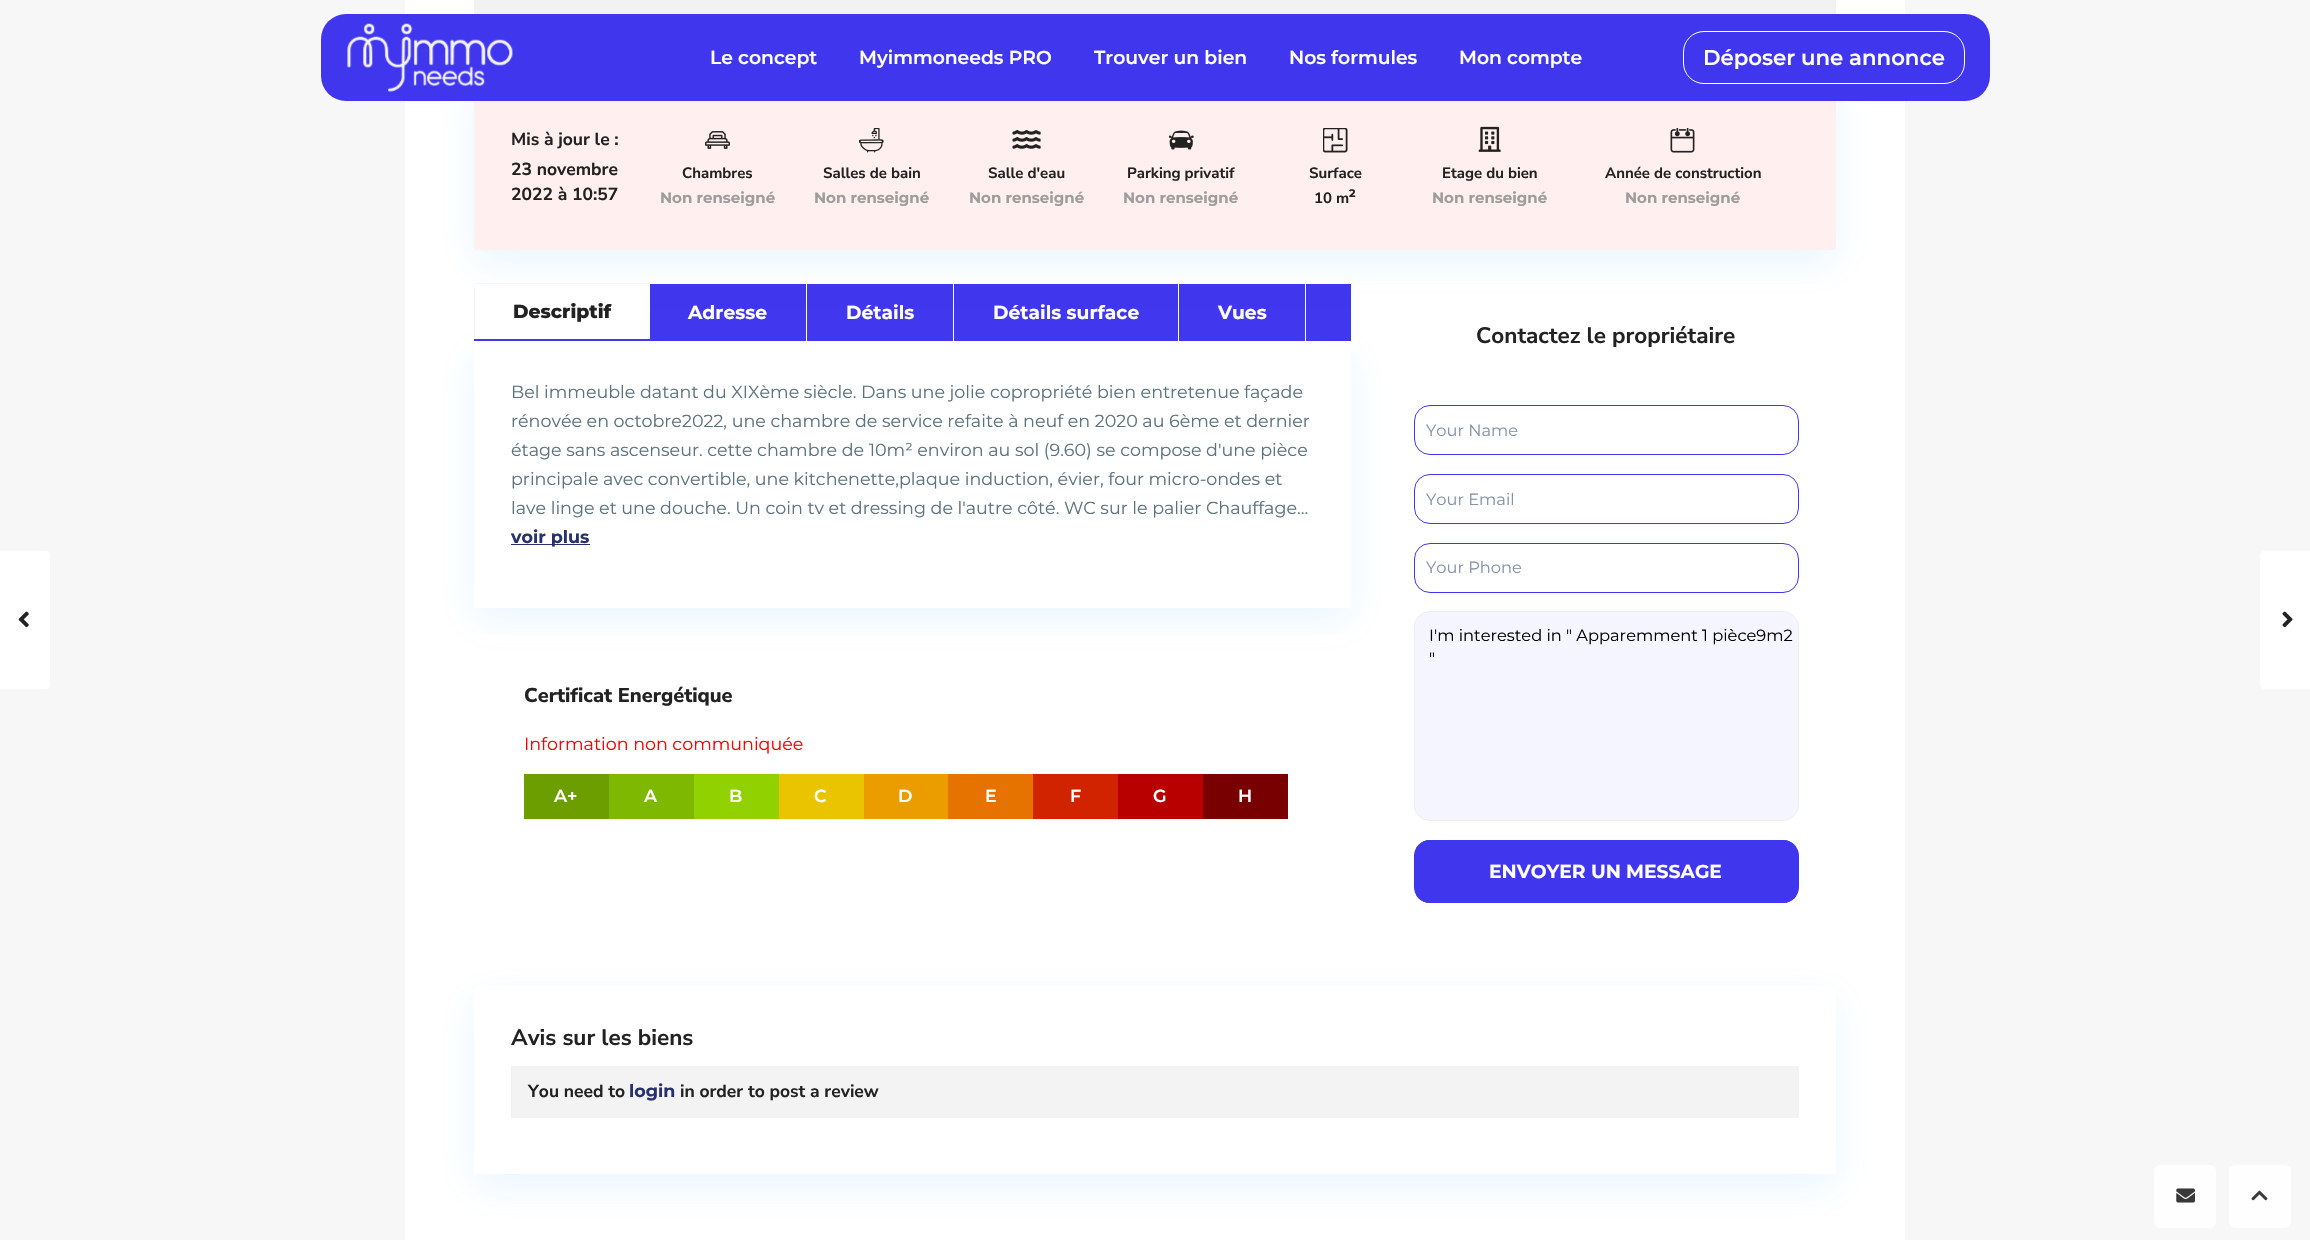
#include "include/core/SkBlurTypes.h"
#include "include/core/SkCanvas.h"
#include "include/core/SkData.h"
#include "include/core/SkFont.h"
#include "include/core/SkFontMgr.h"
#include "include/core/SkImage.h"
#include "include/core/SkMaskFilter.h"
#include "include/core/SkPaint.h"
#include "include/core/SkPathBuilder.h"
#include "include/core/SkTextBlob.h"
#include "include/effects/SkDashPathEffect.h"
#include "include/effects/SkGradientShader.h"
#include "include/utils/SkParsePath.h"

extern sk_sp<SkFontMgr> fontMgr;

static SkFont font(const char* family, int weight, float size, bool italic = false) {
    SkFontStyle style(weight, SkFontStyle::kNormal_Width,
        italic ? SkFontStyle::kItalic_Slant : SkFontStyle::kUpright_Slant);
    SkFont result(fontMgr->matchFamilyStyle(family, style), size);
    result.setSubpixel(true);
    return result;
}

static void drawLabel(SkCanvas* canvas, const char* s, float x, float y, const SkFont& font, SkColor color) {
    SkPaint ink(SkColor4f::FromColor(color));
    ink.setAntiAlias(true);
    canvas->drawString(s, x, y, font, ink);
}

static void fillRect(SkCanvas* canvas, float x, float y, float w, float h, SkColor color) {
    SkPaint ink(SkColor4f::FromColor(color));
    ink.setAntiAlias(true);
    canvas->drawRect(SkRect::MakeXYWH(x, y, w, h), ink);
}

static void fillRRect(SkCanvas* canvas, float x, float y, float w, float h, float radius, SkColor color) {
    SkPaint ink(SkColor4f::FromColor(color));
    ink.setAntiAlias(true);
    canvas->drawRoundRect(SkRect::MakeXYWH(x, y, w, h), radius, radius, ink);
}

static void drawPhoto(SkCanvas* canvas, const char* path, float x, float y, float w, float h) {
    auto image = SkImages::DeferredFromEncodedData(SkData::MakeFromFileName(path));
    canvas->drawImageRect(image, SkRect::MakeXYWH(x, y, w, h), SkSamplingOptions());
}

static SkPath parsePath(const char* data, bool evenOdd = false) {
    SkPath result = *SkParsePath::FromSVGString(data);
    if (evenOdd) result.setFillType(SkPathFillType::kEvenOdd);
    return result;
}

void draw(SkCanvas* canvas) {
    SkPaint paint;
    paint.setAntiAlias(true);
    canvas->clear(0xFFF7F7F7);
    fillRect(canvas, 405, 0, 1500, 1240, 0xFFFFFFFF);
    paint.setColor(0x170798FF);
    paint.setMaskFilter(SkMaskFilter::MakeBlur(kNormal_SkBlurStyle, 19.5f));
    canvas->drawRoundRect(SkRect::MakeXYWH(474, 90, 1362, 173), 2.5f, 2.5f, paint);
    paint.setMaskFilter(nullptr);
    fillRRect(canvas, 474, 78, 1362, 172, 2.5f, 0xFFFFEFEF);
    fillRRect(canvas, 321, 14, 1669, 87, 25, 0xFF4036EE);
    drawPhoto(canvas, "assets/img1.png", 347, 23, 166, 69);
    SkFont font1 = font("Montserrat", 600, 18.75f);
    drawLabel(canvas, "Le concept", 710, 64, font1, 0xFFFFFFFF);
    drawLabel(canvas, "Myimmoneeds PRO", 859, 64, font1, 0xFFFFFFFF);
    drawLabel(canvas, "Trouver un bien", 1094, 64, font1, 0xFFFFFFFF);
    drawLabel(canvas, "Nos formules", 1289, 64, font1, 0xFFFFFFFF);
    drawLabel(canvas, "Mon compte", 1459, 64, font1, 0xFFFFFFFF);
    paint.setStroke(true);
    paint.setStrokeWidth(1);
    paint.setColor(0xFFFFFFFF);
    canvas->drawRoundRect(SkRect::MakeXYWH(1683.5f, 31.5f, 281, 52), 20.5f, 20.5f, paint);
    SkFont font2 = font("Montserrat", 600, 21.25f);
    drawLabel(canvas, "Déposer une annonce", 1703, 65, font2, 0xFFFFFFFF);
    fillRect(canvas, 474, 0, 1362, 14, 0xFFF2F2F2);
    SkFont font3 = font("Nunito Sans", 700, 17.5f);
    drawLabel(canvas, "Mis à jour le :", 511, 145, font3, 0xFF222222);
    drawLabel(canvas, "23 novembre", 511, 175, font3, 0xFF222222);
    drawLabel(canvas, "2022 à 10:57", 511, 200, font3, 0xFF222222);
    drawPhoto(canvas, "assets/img2.png", 705, 131, 25, 18);
    SkFont font4 = font("Nunito Sans", 700, 15);
    drawLabel(canvas, "Chambres", 682, 178, font4, 0xFF222222);
    SkFont font5 = font("Montserrat", 700, 15);
    drawLabel(canvas, "Non renseigné", 660, 203, font5, 0xFF9D9D9D);
    drawPhoto(canvas, "assets/img3.png", 859, 128, 25, 25);
    drawLabel(canvas, "Salles de bain", 823, 178, font4, 0xFF222222);
    drawLabel(canvas, "Non renseigné", 814, 203, font5, 0xFF9D9D9D);
    drawPhoto(canvas, "assets/img4.png", 1012, 130, 29, 19);
    drawLabel(canvas, "Salle d'eau", 988, 178, font4, 0xFF222222);
    drawLabel(canvas, "Non renseigné", 969, 203, font5, 0xFF9D9D9D);
    drawPhoto(canvas, "assets/img5.png", 1169, 130, 25, 20);
    drawLabel(canvas, "Parking privatif", 1127, 178, font4, 0xFF222222);
    drawLabel(canvas, "Non renseigné", 1123, 203, font5, 0xFF9D9D9D);
    drawPhoto(canvas, "assets/img6.png", 1323, 128, 25, 25);
    drawLabel(canvas, "Surface", 1309, 178, font4, 0xFF222222);
    drawLabel(canvas, "10 m", 1314, 203, font4, 0xFF222222);
    SkFont font6 = font("Montserrat", 700, 11);
    drawLabel(canvas, "2", 1349, 197, font6, 0xFF222222);
    drawPhoto(canvas, "assets/img7.png", 1478, 126, 23, 26);
    drawLabel(canvas, "Etage du bien", 1442, 178, font4, 0xFF222222);
    drawLabel(canvas, "Non renseigné", 1432, 203, font5, 0xFF9D9D9D);
    drawPhoto(canvas, "assets/img8.png", 1670, 128, 25, 25);
    drawLabel(canvas, "Année de construction", 1605, 178, font4, 0xFF222222);
    drawLabel(canvas, "Non renseigné", 1625, 203, font5, 0xFF9D9D9D);
    fillRect(canvas, 474, 284, 877, 57, 0xFF4036EE);
    fillRect(canvas, 474, 283, 176, 1, 0xFFF7F7F7);
    paint.setStroke(false);
    paint.setColor(0x170798FF);
    paint.setMaskFilter(SkMaskFilter::MakeBlur(kNormal_SkBlurStyle, 19.5f));
    canvas->drawRoundRect(SkRect::MakeXYWH(474, 354, 877, 266), 2.5f, 2.5f, paint);
    paint.setMaskFilter(nullptr);
    fillRect(canvas, 649, 283, 1, 56, 0xFFFFFFFF);
    fillRect(canvas, 474, 283, 1, 56, 0xFFF7F7F7);
    fillRect(canvas, 475, 284, 174, 55, 0xFFFFFFFF);
    SkFont font7 = font("Montserrat", 800, 18.75f);
    drawLabel(canvas, "Descriptif", 513, 318, font7, 0xFF222222);
    fillRect(canvas, 806, 284, 1, 57, 0xFFFFFFFF);
    SkFont font8 = font("Montserrat", 700, 18.75f);
    drawLabel(canvas, "Adresse", 688, 319, font8, 0xFFFFFFFF);
    fillRect(canvas, 953, 284, 1, 57, 0xFFFFFFFF);
    drawLabel(canvas, "Détails", 846, 319, font8, 0xFFFFFFFF);
    fillRect(canvas, 1178, 284, 1, 57, 0xFFFFFFFF);
    drawLabel(canvas, "Détails surface", 993, 319, font8, 0xFFFFFFFF);
    fillRect(canvas, 1305, 284, 1, 57, 0xFFFFFFFF);
    drawLabel(canvas, "Vues", 1218, 319, font8, 0xFFFFFFFF);
    paint.setColor(0xFFFFFFFF);
    canvas->drawPath(parsePath("M476.5 341H1348.5C1350 341 1351 342 1351 343.5V608H474V343.5C474 342 475 341 476.5 341Z"), paint);
    SkFont font9 = font("Montserrat", 400, 17.5f);
    drawLabel(canvas, "Bel immeuble datant du XIXème siècle. Dans une jolie copropriété bien entretenue façade", 511, 398, font9, 0xFF5C727D);
    drawLabel(canvas, "rénovée en octobre2022, une chambre de service refaite à neuf en 2020 au 6ème et dernier", 511, 427, font9, 0xFF5C727D);
    drawLabel(canvas, "étage sans ascenseur. cette chambre de 10m² environ au sol (9.60) se compose d'une pièce", 511, 456, font9, 0xFF5C727D);
    drawLabel(canvas, "principale avec convertible, une kitchenette,plaque induction, évier, four micro-ondes et", 511, 485, font9, 0xFF5C727D);
    drawLabel(canvas, "lave linge et une douche. Un coin tv et dressing de l'autre côté. WC sur le palier Chauffage…", 511, 514, font9, 0xFF5C727D);
    fillRect(canvas, 511, 544, 79, 1, 0xFF27316F);
    SkFont font10 = font("Montserrat", 700, 17.5f);
    drawLabel(canvas, "voir plus", 511, 543, font10, 0xFF27316F);
    fillRect(canvas, 476, 635, 873, 8, 0xFFFFFFFF);
    SkFont font11 = font("Nunito Sans", 800, 20);
    drawLabel(canvas, "Certificat Energétique", 524, 702, font11, 0xFF222222);
    drawLabel(canvas, "Information non communiquée", 524, 750, font9, 0xFFFF0000);
    fillRect(canvas, 524, 774, 85, 45, 0xFF6D9E00);
    SkFont font12 = font("Montserrat", 600, 17.5f);
    drawLabel(canvas, "A+", 554, 802, font12, 0xFFFFFFFF);
    fillRect(canvas, 609, 774, 85, 45, 0xFF7FB800);
    drawLabel(canvas, "A", 644, 802, font12, 0xFFFFFFFF);
    fillRect(canvas, 694, 774, 85, 45, 0xFF91D100);
    drawLabel(canvas, "B", 729, 802, font12, 0xFFFFFFFF);
    fillRect(canvas, 779, 774, 85, 45, 0xFFEBC400);
    drawLabel(canvas, "C", 814, 802, font12, 0xFFFFFFFF);
    fillRect(canvas, 864, 774, 84, 45, 0xFFEB9D00);
    drawLabel(canvas, "D", 898, 802, font12, 0xFFFFFFFF);
    fillRect(canvas, 948, 774, 85, 45, 0xFFE67300);
    drawLabel(canvas, "E", 985, 802, font12, 0xFFFFFFFF);
    fillRect(canvas, 1033, 774, 85, 45, 0xFFD22300);
    drawLabel(canvas, "F", 1070, 802, font12, 0xFFFFFFFF);
    fillRect(canvas, 1118, 774, 85, 45, 0xFFB80000);
    drawLabel(canvas, "G", 1153, 802, font12, 0xFFFFFFFF);
    fillRect(canvas, 1203, 774, 85, 45, 0xFF790000);
    drawLabel(canvas, "H", 1238, 802, font12, 0xFFFFFFFF);
    fillRect(canvas, 1376, 284, 439, 2, 0xFFFFFFFF);
    SkFont font13 = font("Nunito Sans", 700, 22.5f);
    drawLabel(canvas, "Contactez le propriétaire", 1476, 343, font13, 0xFF222222);
    paint.setStroke(true);
    paint.setColor(0xFF4036EE);
    canvas->drawRoundRect(SkRect::MakeXYWH(1414.5f, 405.5f, 384, 49), 15.5f, 15.5f, paint);
    SkFont font14 = font("Montserrat", 400, 16.25f);
    drawLabel(canvas, "Your Name", 1426, 436, font14, 0xFF8593A9);
    canvas->drawRoundRect(SkRect::MakeXYWH(1414.5f, 474.5f, 384, 49), 15.5f, 15.5f, paint);
    drawLabel(canvas, "Your Email", 1426, 505, font14, 0xFF8593A9);
    canvas->drawRoundRect(SkRect::MakeXYWH(1414.5f, 543.5f, 384, 49), 15.5f, 15.5f, paint);
    drawLabel(canvas, "Your Phone", 1426, 573, font14, 0xFF8593A9);
    paint.setStroke(false);
    paint.setColor(0xFFF5F5FF);
    canvas->drawRoundRect(SkRect::MakeXYWH(1414.5f, 611.5f, 384, 209), 15.5f, 15.5f, paint);
    paint.setStroke(true);
    paint.setColor(0xFFEEEEEE);
    canvas->drawRoundRect(SkRect::MakeXYWH(1414.5f, 611.5f, 384, 209), 15.5f, 15.5f, paint);
    drawLabel(canvas, "I'm interested in \" Apparemment 1 pièce9m2", 1429, 641, font14, 0xFF000000);
    drawLabel(canvas, "\"", 1429, 664, font14, 0xFF000000);
    canvas->save();
    canvas->clipPath(parsePath("M1430 840H1783C1792 840 1799 847 1799 856V887C1799 896 1792 903 1783 903H1430C1421 903 1414 896 1414 887V856C1414 847 1421 840 1430 840Z"), true);
    fillRect(canvas, 1416, 840, 380, 63, 0xFF4036EE);
    canvas->restore();
    paint.setStrokeWidth(3);
    paint.setColor(0xFF4036EE);
    canvas->drawRoundRect(SkRect::MakeXYWH(1415.5f, 841.5f, 382, 60), 14.5f, 14.5f, paint);
    drawLabel(canvas, "ENVOYER UN MESSAGE", 1489, 878, font8, 0xFFFFFFFF);
    paint.setStroke(false);
    paint.setColor(0x170798FF);
    paint.setMaskFilter(SkMaskFilter::MakeBlur(kNormal_SkBlurStyle, 19.5f));
    canvas->drawRoundRect(SkRect::MakeXYWH(474, 999, 1362, 187), 2.5f, 2.5f, paint);
    paint.setMaskFilter(nullptr);
    fillRRect(canvas, 474, 986, 1362, 188, 2.5f, 0xFFFFFFFF);
    drawLabel(canvas, "Avis sur les biens", 511, 1045, font13, 0xFF222222);
    fillRect(canvas, 511, 1066, 1288, 52, 0xFFF3F3F3);
    drawLabel(canvas, "You need to", 528, 1097, font3, 0xFF222222);
    drawLabel(canvas, "login", 629, 1097, font10, 0xFF27316F);
    drawLabel(canvas, "in order to post a review", 680, 1097, font3, 0xFF222222);
    paint.setColor(0xFFFFFFFF);
    canvas->drawPath(parsePath("M-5 551H45C48 551 50 553 50 556V684C50 687 48 689 45 689H-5Z"), paint);
    drawPhoto(canvas, "assets/img9.png", 18, 611, 11, 17);
    canvas->drawPath(parsePath("M2265 551H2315V689H2265C2262 689 2260 687 2260 684V556C2260 553 2262 551 2265 551Z"), paint);
    drawPhoto(canvas, "assets/img10.png", 2282, 611, 11, 17);
    fillRRect(canvas, 2154, 1165, 62, 63, 6, 0xFFFEFEFE);
    drawPhoto(canvas, "assets/img11.png", 2176, 1188, 19, 15);
    fillRRect(canvas, 2229, 1165, 62, 63, 6, 0xFFFEFEFE);
    drawPhoto(canvas, "assets/img12.png", 2251, 1190, 17, 11);
}
